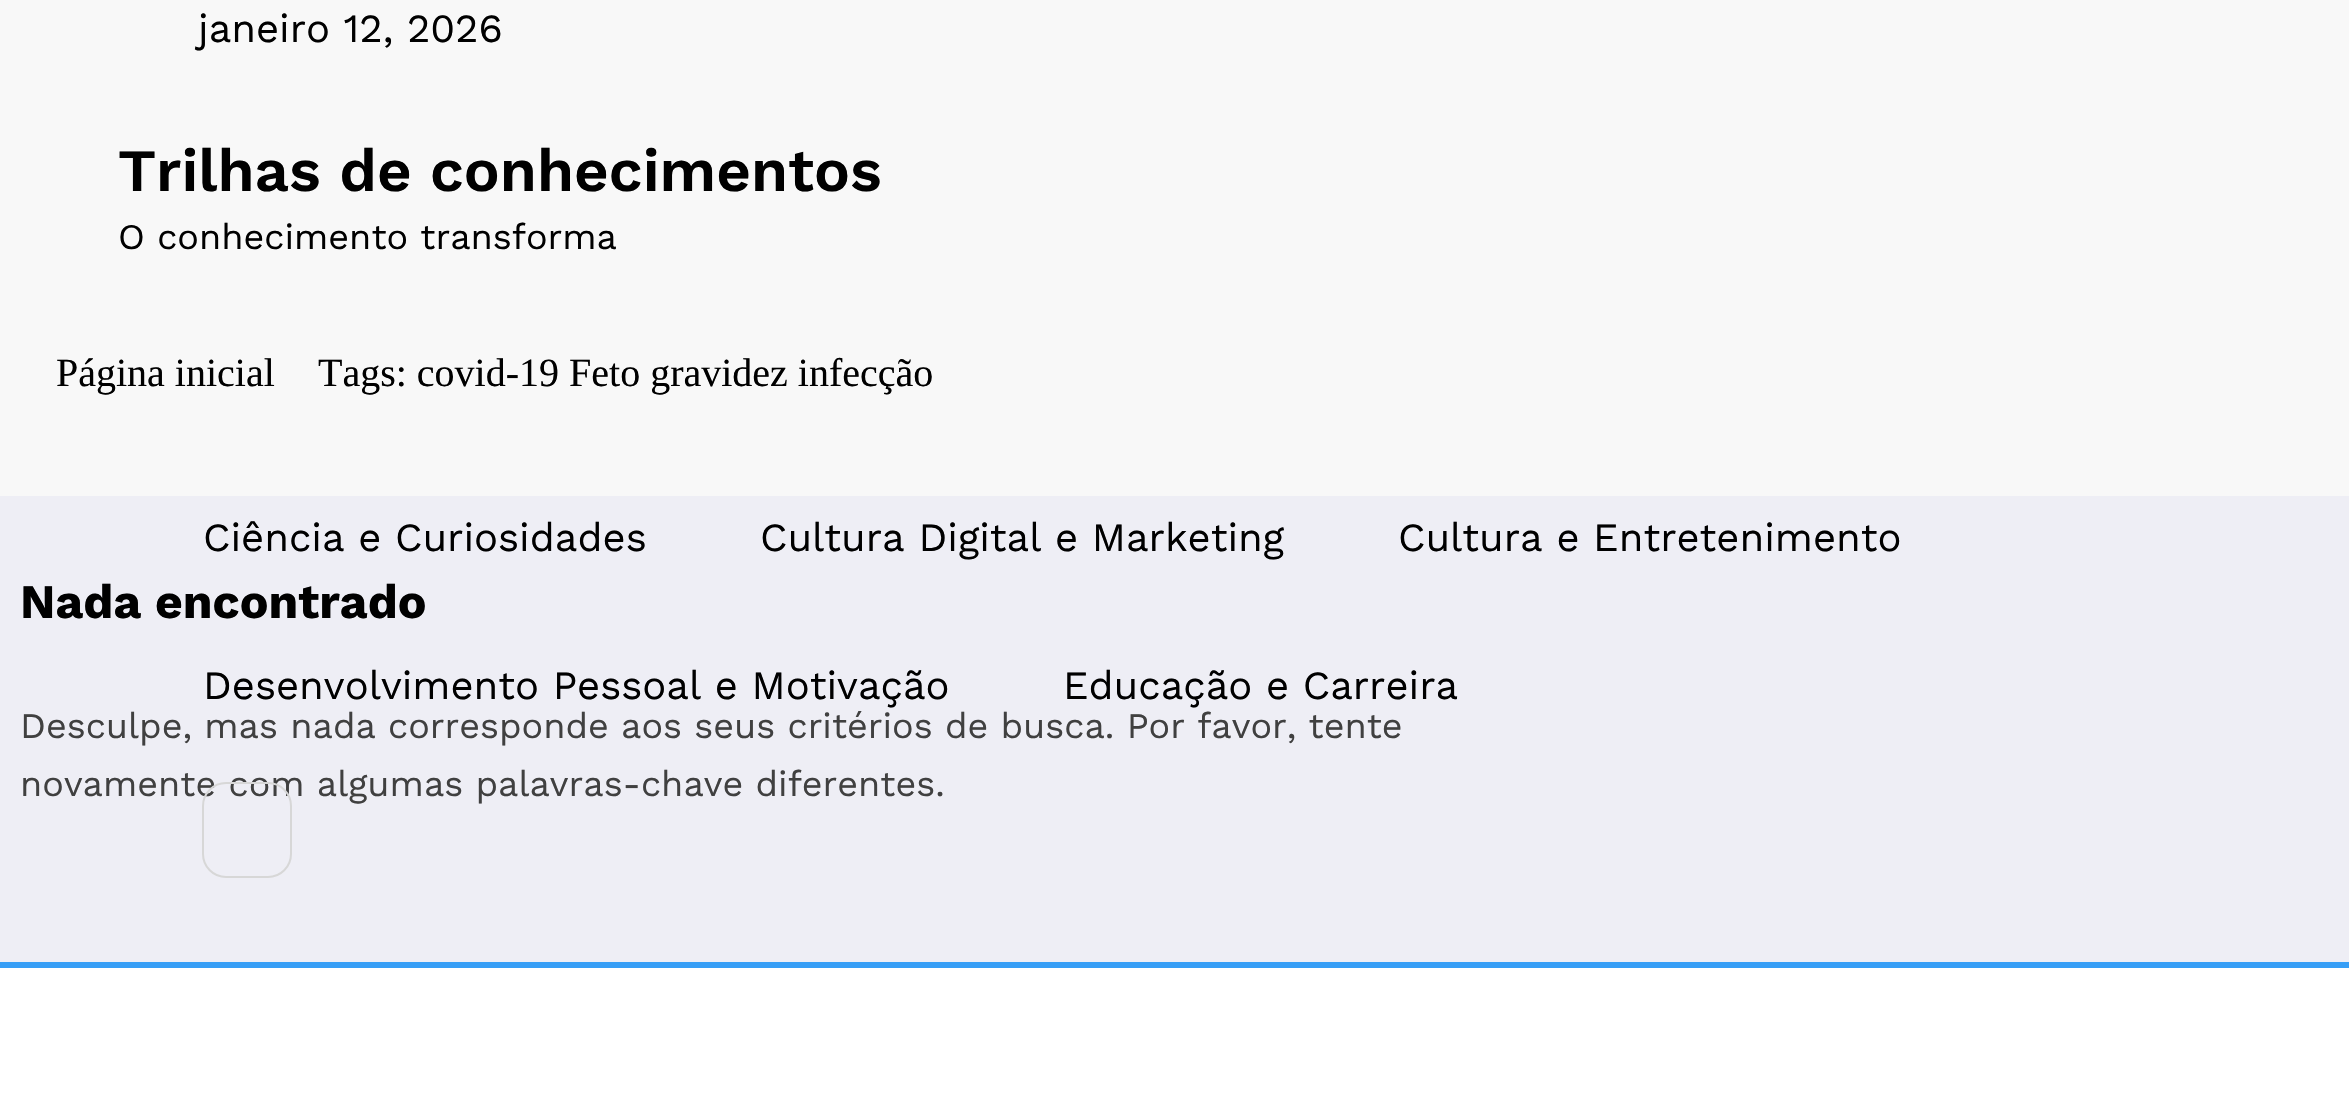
#include "include/core/SkBlurTypes.h"
#include "include/core/SkCanvas.h"
#include "include/core/SkData.h"
#include "include/core/SkFont.h"
#include "include/core/SkFontMgr.h"
#include "include/core/SkImage.h"
#include "include/core/SkMaskFilter.h"
#include "include/core/SkPaint.h"
#include "include/core/SkPathBuilder.h"
#include "include/core/SkTextBlob.h"
#include "include/effects/SkDashPathEffect.h"
#include "include/effects/SkGradientShader.h"
#include "include/utils/SkParsePath.h"

extern sk_sp<SkFontMgr> fontMgr;

static SkFont font(const char* family, int weight, float size, bool italic = false) {
    SkFontStyle style(weight, SkFontStyle::kNormal_Width,
        italic ? SkFontStyle::kItalic_Slant : SkFontStyle::kUpright_Slant);
    SkFont result(fontMgr->matchFamilyStyle(family, style), size);
    result.setSubpixel(true);
    return result;
}

static void drawLabel(SkCanvas* canvas, const char* s, float x, float y, const SkFont& font, SkColor color) {
    SkPaint ink(SkColor4f::FromColor(color));
    ink.setAntiAlias(true);
    canvas->drawString(s, x, y, font, ink);
}

static void fillRect(SkCanvas* canvas, float x, float y, float w, float h, SkColor color) {
    SkPaint ink(SkColor4f::FromColor(color));
    ink.setAntiAlias(true);
    canvas->drawRect(SkRect::MakeXYWH(x, y, w, h), ink);
}

void draw(SkCanvas* canvas) {
    SkPaint paint;
    paint.setAntiAlias(true);
    canvas->clear(0xFFFFFFFF);
    fillRect(canvas, 0, 496, 2349, 466, 0xFFEEEEF5);
    fillRect(canvas, 0, 0, 2349, 496, 0xFFF8F8F8);
    SkFont font1 = font("Work Sans", 400, 40);
    drawLabel(canvas, "janeiro 12, 2026", 198, 42, font1, 0xFF000000);
    SkFont font2 = font("Work Sans", 600, 60);
    drawLabel(canvas, "Trilhas de conhecimentos", 118, 191, font2, 0xFF000000);
    SkFont font3 = font("Work Sans", 400, 36);
    drawLabel(canvas, "O conhecimento transforma", 118, 249, font3, 0xFF000000);
    drawLabel(canvas, "Ciência e Curiosidades", 203, 551, font1, 0xFF000000);
    drawLabel(canvas, "Cultura Digital e Marketing", 760, 551, font1, 0xFF000000);
    drawLabel(canvas, "Cultura e Entretenimento", 1398, 551, font1, 0xFF000000);
    drawLabel(canvas, "Desenvolvimento Pessoal e Motivação", 203, 699, font1, 0xFF000000);
    drawLabel(canvas, "Educação e Carreira", 1063, 699, font1, 0xFF000000);
    drawLabel(canvas, "novamente com algumas palavras-chave diferentes.", 20, 796, font3, 0xFF404040);
    paint.setStroke(true);
    paint.setStrokeWidth(2);
    paint.setColor(0xFFD7D7D7);
    canvas->drawRoundRect(SkRect::MakeXYWH(203, 783, 88, 94), 23, 23, paint);
    SkFont font4 = font("Liberation Serif", 400, 40);
    drawLabel(canvas, "Página inicial", 56, 386, font4, 0xFF000000);
    drawLabel(canvas, "Tags: covid-19 Feto gravidez infecção", 318, 386, font4, 0xFF000000);
    SkFont font5 = font("Work Sans", 700, 48);
    drawLabel(canvas, "Nada encontrado", 20, 618, font5, 0xFF000000);
    drawLabel(canvas, "Desculpe, mas nada corresponde aos seus critérios de busca. Por favor, tente", 20, 738, font3, 0xFF404040);
    fillRect(canvas, 0, 962, 2349, 6, 0xFF369EF6);
}
